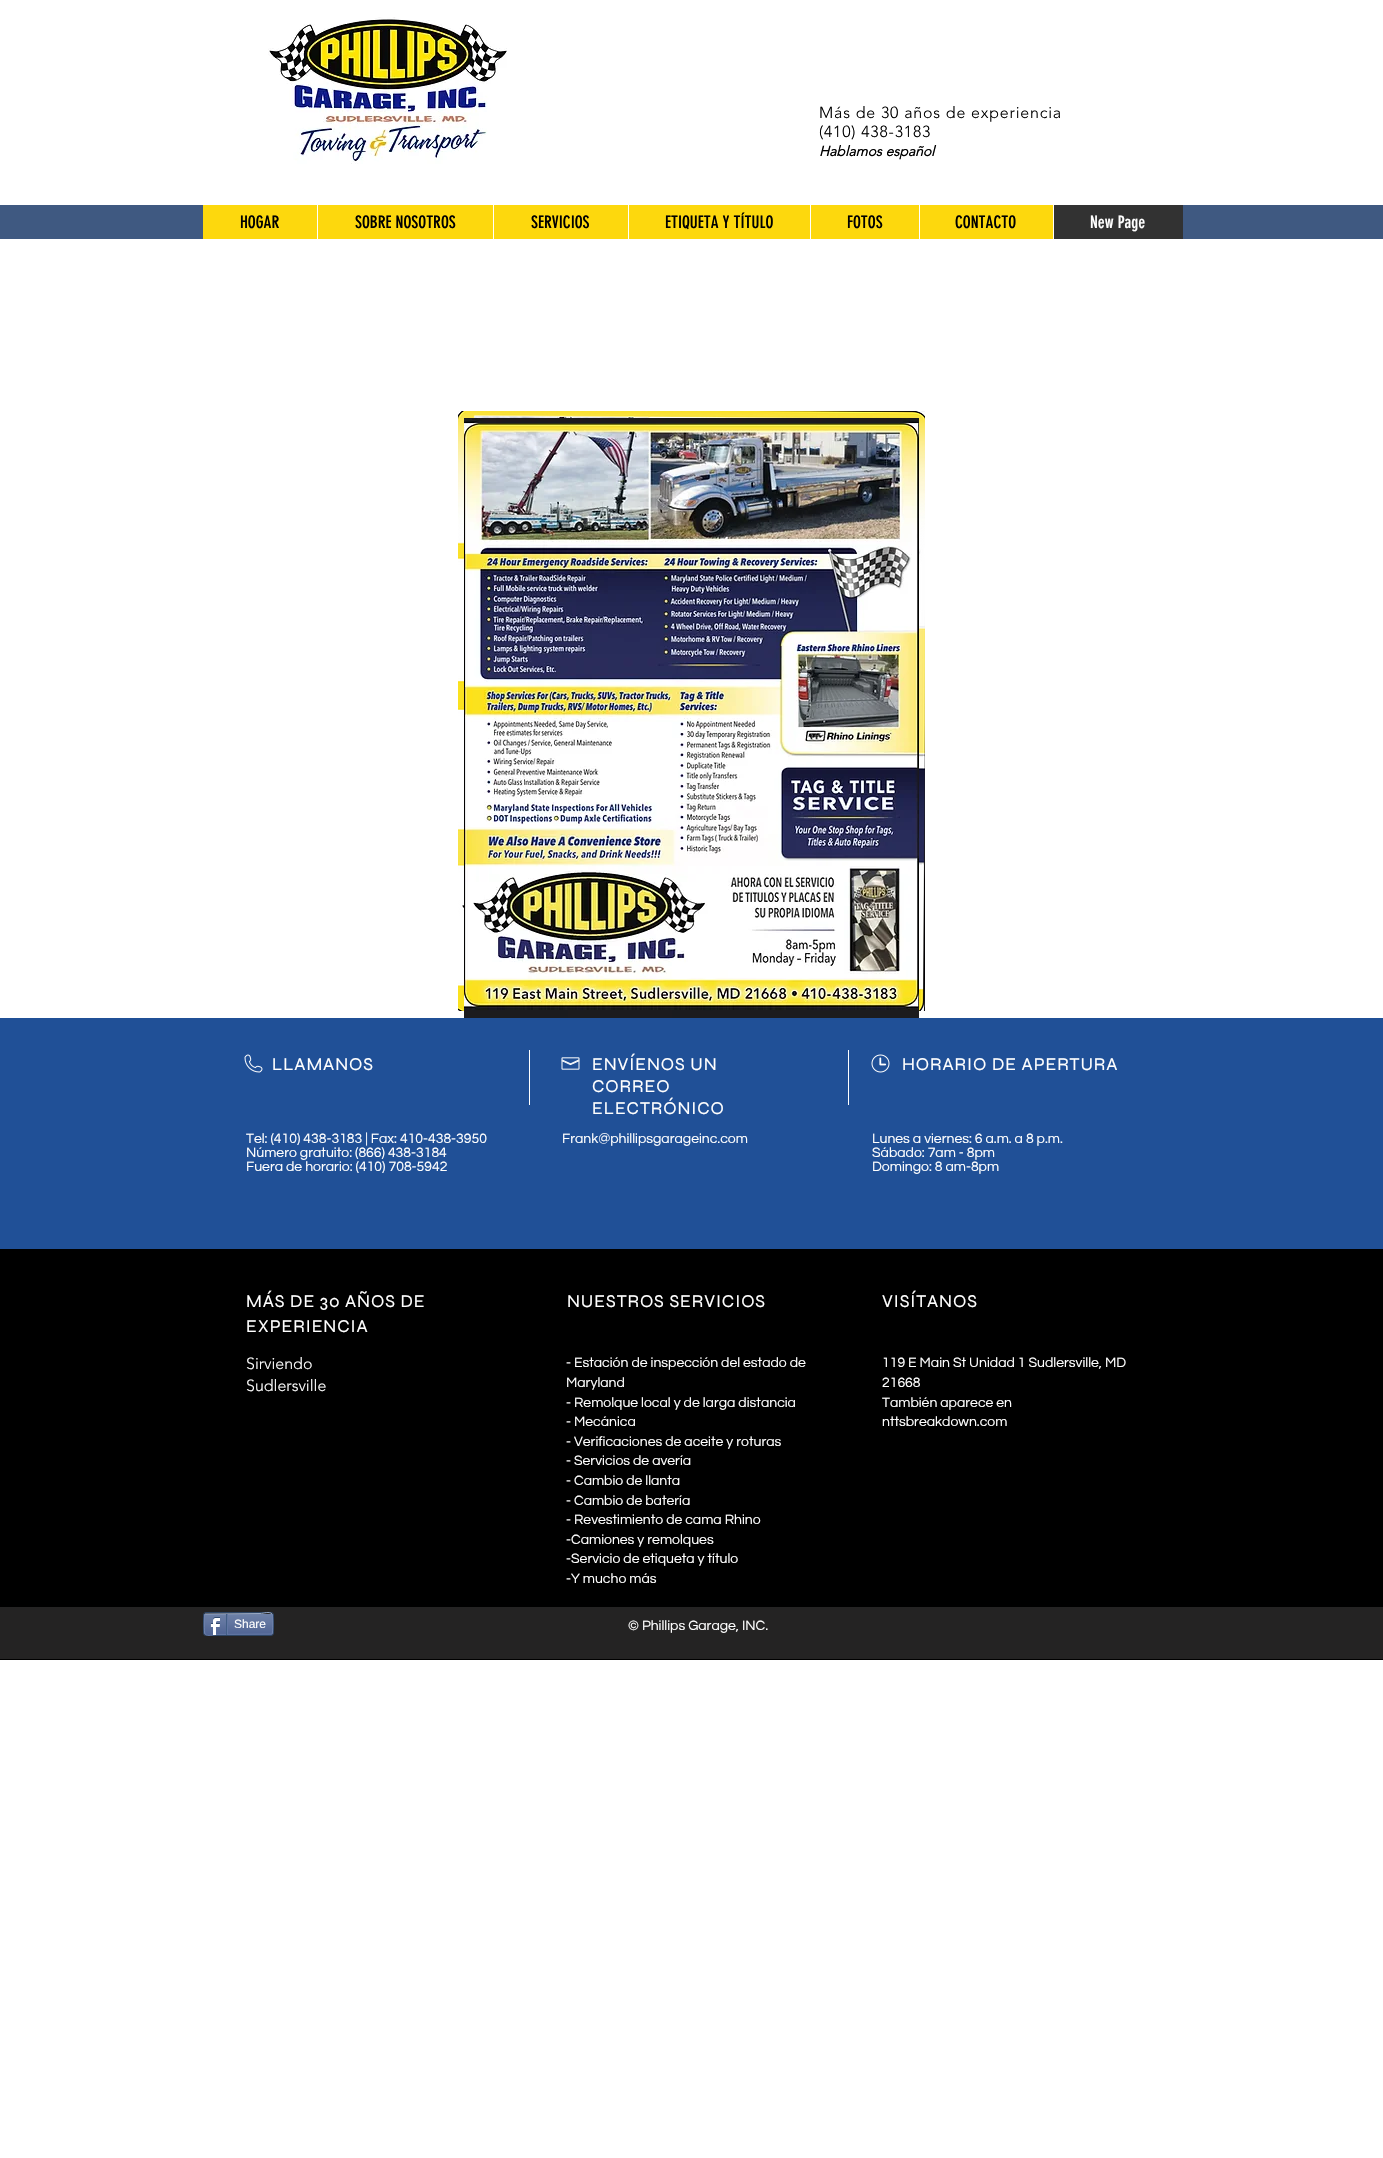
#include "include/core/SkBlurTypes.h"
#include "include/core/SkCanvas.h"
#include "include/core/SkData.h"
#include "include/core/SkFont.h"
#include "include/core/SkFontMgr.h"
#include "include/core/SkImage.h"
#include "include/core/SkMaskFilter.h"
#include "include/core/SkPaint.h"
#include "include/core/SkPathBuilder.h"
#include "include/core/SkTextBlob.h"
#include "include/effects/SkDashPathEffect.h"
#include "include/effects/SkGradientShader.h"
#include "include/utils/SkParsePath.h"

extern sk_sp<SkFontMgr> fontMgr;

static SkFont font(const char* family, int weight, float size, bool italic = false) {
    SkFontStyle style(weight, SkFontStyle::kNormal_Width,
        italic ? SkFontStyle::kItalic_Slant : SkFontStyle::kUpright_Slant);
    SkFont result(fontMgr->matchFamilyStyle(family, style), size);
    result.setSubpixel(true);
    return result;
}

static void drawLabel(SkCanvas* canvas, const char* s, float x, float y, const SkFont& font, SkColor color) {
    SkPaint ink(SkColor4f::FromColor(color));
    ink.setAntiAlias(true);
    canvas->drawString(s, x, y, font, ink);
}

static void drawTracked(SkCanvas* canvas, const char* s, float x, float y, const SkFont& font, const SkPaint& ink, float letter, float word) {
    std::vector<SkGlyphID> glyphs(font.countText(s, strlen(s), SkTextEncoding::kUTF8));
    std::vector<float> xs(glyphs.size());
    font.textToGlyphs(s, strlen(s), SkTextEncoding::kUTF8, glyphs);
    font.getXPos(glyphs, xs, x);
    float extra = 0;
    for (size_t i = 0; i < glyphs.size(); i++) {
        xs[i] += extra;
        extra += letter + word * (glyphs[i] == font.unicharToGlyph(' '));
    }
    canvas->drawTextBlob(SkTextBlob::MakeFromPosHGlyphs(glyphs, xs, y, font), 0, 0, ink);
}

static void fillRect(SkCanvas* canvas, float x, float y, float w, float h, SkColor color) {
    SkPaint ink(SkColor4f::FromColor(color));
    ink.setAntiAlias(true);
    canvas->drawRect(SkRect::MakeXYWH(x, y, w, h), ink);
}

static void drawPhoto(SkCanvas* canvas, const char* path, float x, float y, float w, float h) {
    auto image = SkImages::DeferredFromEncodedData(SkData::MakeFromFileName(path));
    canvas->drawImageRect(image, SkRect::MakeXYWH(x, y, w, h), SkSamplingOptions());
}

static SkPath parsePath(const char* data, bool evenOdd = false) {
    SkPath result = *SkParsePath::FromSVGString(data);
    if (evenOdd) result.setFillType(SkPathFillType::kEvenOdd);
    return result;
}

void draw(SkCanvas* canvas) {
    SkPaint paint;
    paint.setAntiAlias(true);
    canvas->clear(0xFFFFFFFF);
    drawPhoto(canvas, "assets/img1.png", 268, 17, 239, 147);
    SkFont font1 = font("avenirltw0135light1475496", 300, 16);
    paint.setColor(0xFF000000);
    drawTracked(canvas, "Más de 30 años de experiencia", 819, 118, font1, paint, 0.8f, 0);
    drawTracked(canvas, "(410) 438-3183", 819, 137, font1, paint, 0.8f, 0);
    SkFont font2 = font("avenirltw0135light1475496", 700, 14, true);
    drawLabel(canvas, "Hablamos español", 819, 156, font2, 0xFF000000);
    fillRect(canvas, 0, 205, 1383, 34, 0xFF3F5981);
    fillRect(canvas, 203, 205, 850, 34, 0xFFFDD80D);
    SkFont font3 = font("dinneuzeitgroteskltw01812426", 400, 17);
    drawLabel(canvas, "HOGAR", 240, 228, font3, 0xFF000000);
    fillRect(canvas, 317, 205, 1, 34, 0xFFFFFFFF);
    drawLabel(canvas, "SOBRE NOSOTROS", 355, 228, font3, 0xFF000000);
    fillRect(canvas, 493, 205, 1, 34, 0xFFFFFFFF);
    drawLabel(canvas, "SERVICIOS", 531, 228, font3, 0xFF000000);
    fillRect(canvas, 628, 205, 1, 34, 0xFFFFFFFF);
    drawLabel(canvas, "ETIQUETA Y TÍTULO", 665, 228, font3, 0xFF000000);
    fillRect(canvas, 810, 205, 1, 34, 0xFFFFFFFF);
    drawLabel(canvas, "FOTOS", 847, 228, font3, 0xFF000000);
    fillRect(canvas, 919, 205, 1, 34, 0xFFFFFFFF);
    drawLabel(canvas, "CONTACTO", 955, 228, font3, 0xFF000000);
    fillRect(canvas, 1054, 205, 129, 34, 0xFF323232);
    fillRect(canvas, 1053, 205, 1, 34, 0xFFFFFFFF);
    drawLabel(canvas, "New Page", 1090, 228, font3, 0xFFFFFFFF);
    drawPhoto(canvas, "assets/img2.png", 458, 411, 467, 600);
    drawPhoto(canvas, "assets/img3.png", 464, 418, 455, 600);
    fillRect(canvas, 0, 1018, 1383, 231, 0xFF205097);
    drawPhoto(canvas, "assets/img4.png", 244, 1054, 19, 19);
    SkFont font4 = font("Syne", 400, 18);
    paint.setColor(0xFFFFFFFF);
    drawTracked(canvas, "LLAMANOS", 272, 1070, font4, paint, 0.9f, 0);
    fillRect(canvas, 529, 1050, 1, 55, 0xFFFFFFFF);
    drawPhoto(canvas, "assets/img5.png", 561, 1057, 19, 13);
    drawTracked(canvas, "ENVÍENOS UN", 592, 1070, font4, paint, 0.9f, 0);
    drawTracked(canvas, "CORREO", 592, 1092, font4, paint, 0.9f, 0);
    drawTracked(canvas, "ELECTRÓNICO", 592, 1114, font4, paint, 0.9f, 0);
    fillRect(canvas, 848, 1050, 1, 55, 0xFFFFFFFF);
    drawPhoto(canvas, "assets/img6.png", 871, 1054, 19, 19);
    drawTracked(canvas, "HORARIO DE APERTURA", 902, 1070, font4, paint, 0.9f, 0);
    SkFont font5 = font("Questrial", 400, 14);
    drawLabel(canvas, "Tel: (410) 438-3183 | Fax: 410-438-3950", 246, 1143, font5, 0xFFFFFFFF);
    drawLabel(canvas, "Número gratuito: (866) 438-3184", 246, 1157, font5, 0xFFFFFFFF);
    drawLabel(canvas, "Fuera de horario: (410) 708-5942", 246, 1171, font5, 0xFFFFFFFF);
    drawLabel(canvas, "Frank@phillipsgarageinc.com", 562, 1143, font5, 0xFFFFFFFF);
    drawLabel(canvas, "Lunes a viernes: 6 a.m. a 8 p.m.", 872, 1143, font5, 0xFFFFFFFF);
    drawLabel(canvas, "Sábado: 7am - 8pm", 872, 1157, font5, 0xFFFFFFFF);
    drawLabel(canvas, "Domingo: 8 am-8pm", 872, 1171, font5, 0xFFFFFFFF);
    fillRect(canvas, 0, 1249, 1383, 411, 0xFF000000);
    drawTracked(canvas, "MÁS DE 30 AÑOS DE", 246, 1307, font4, paint, 0.9f, 0);
    drawTracked(canvas, "EXPERIENCIA", 246, 1332, font4, paint, 0.9f, 0);
    drawTracked(canvas, "NUESTROS SERVICIOS", 567, 1307, font4, paint, 0.9f, 0);
    drawTracked(canvas, "VISÍTANOS", 882, 1307, font4, paint, 0.9f, 0);
    drawLabel(canvas, "Sirviendo", 246, 1369, font1, 0xFFFFFFFF);
    drawLabel(canvas, "Sudlersville", 246, 1391, font1, 0xFFFFFFFF);
    drawLabel(canvas, "- Estación de inspección del estado de", 566, 1367, font5, 0xFFFFFFFF);
    drawLabel(canvas, "Maryland", 566, 1387, font5, 0xFFFFFFFF);
    drawLabel(canvas, "- Remolque local y de larga distancia", 566, 1407, font5, 0xFFFFFFFF);
    drawLabel(canvas, "- Mecánica", 566, 1426, font5, 0xFFFFFFFF);
    drawLabel(canvas, "- Verificaciones de aceite y roturas", 566, 1446, font5, 0xFFFFFFFF);
    drawLabel(canvas, "- Servicios de avería", 566, 1465, font5, 0xFFFFFFFF);
    drawLabel(canvas, "- Cambio de llanta", 566, 1485, font5, 0xFFFFFFFF);
    drawLabel(canvas, "- Cambio de batería", 566, 1505, font5, 0xFFFFFFFF);
    drawLabel(canvas, "- Revestimiento de cama Rhino", 566, 1524, font5, 0xFFFFFFFF);
    drawLabel(canvas, "-Camiones y remolques", 566, 1544, font5, 0xFFFFFFFF);
    drawLabel(canvas, "-Servicio de etiqueta y título", 566, 1563, font5, 0xFFFFFFFF);
    drawLabel(canvas, "-Y mucho más", 566, 1583, font5, 0xFFFFFFFF);
    drawLabel(canvas, "119 E Main St Unidad 1 Sudlersville, MD", 882, 1367, font5, 0xFFFFFFFF);
    drawLabel(canvas, "21668", 882, 1387, font5, 0xFFFFFFFF);
    drawLabel(canvas, "También aparece en", 882, 1407, font5, 0xFFFFFFFF);
    drawLabel(canvas, "nttsbreakdown.com", 882, 1426, font5, 0xFFFFFFFF);
    fillRect(canvas, 0, 1607, 1383, 52, 0xFF242323);
    paint.setStroke(true);
    paint.setStrokeWidth(1);
    paint.setColor(0xFF2D4565);
    canvas->drawRoundRect(SkRect::MakeXYWH(203.5f, 1612.5f, 70, 23), 2.5f, 2.5f, paint);
    drawPhoto(canvas, "assets/img7.png", 204, 1614, 69, 21);
    paint.setColor(0xFF9AABC6);
    canvas->drawPath(parsePath("M205 1614L260 1613.5C264 1613.5 269 1611 272 1614"), paint);
    paint.setColor(0xFF6F83AD);
    canvas->drawPath(parsePath("M272 1614C273 1614.5 273 1633.5 272 1634"), paint);
    paint.setColor(0xFF6176A3);
    canvas->drawPath(parsePath("M272 1634L217 1634.5C213 1634.5 208 1637 205 1634"), paint);
    paint.setColor(0xFF6F83AD);
    canvas->drawPath(parsePath("M205 1634C204 1633.5 204 1614.5 205 1614"), paint);
    drawPhoto(canvas, "assets/img8.png", 210, 1617, 10, 18);
    fillRect(canvas, 226, 1614, 1, 21, 0xFF425E85);
    SkFont font6 = font("Liberation Sans", 400, 12);
    drawLabel(canvas, "Share", 234, 1628, font6, 0xFFFFFFFF);
    fillRect(canvas, 227, 1614, 1, 20, 0xFF6176A3);
    drawLabel(canvas, "© Phillips Garage, INC.", 628, 1630, font5, 0xFFFFFFFF);
}
